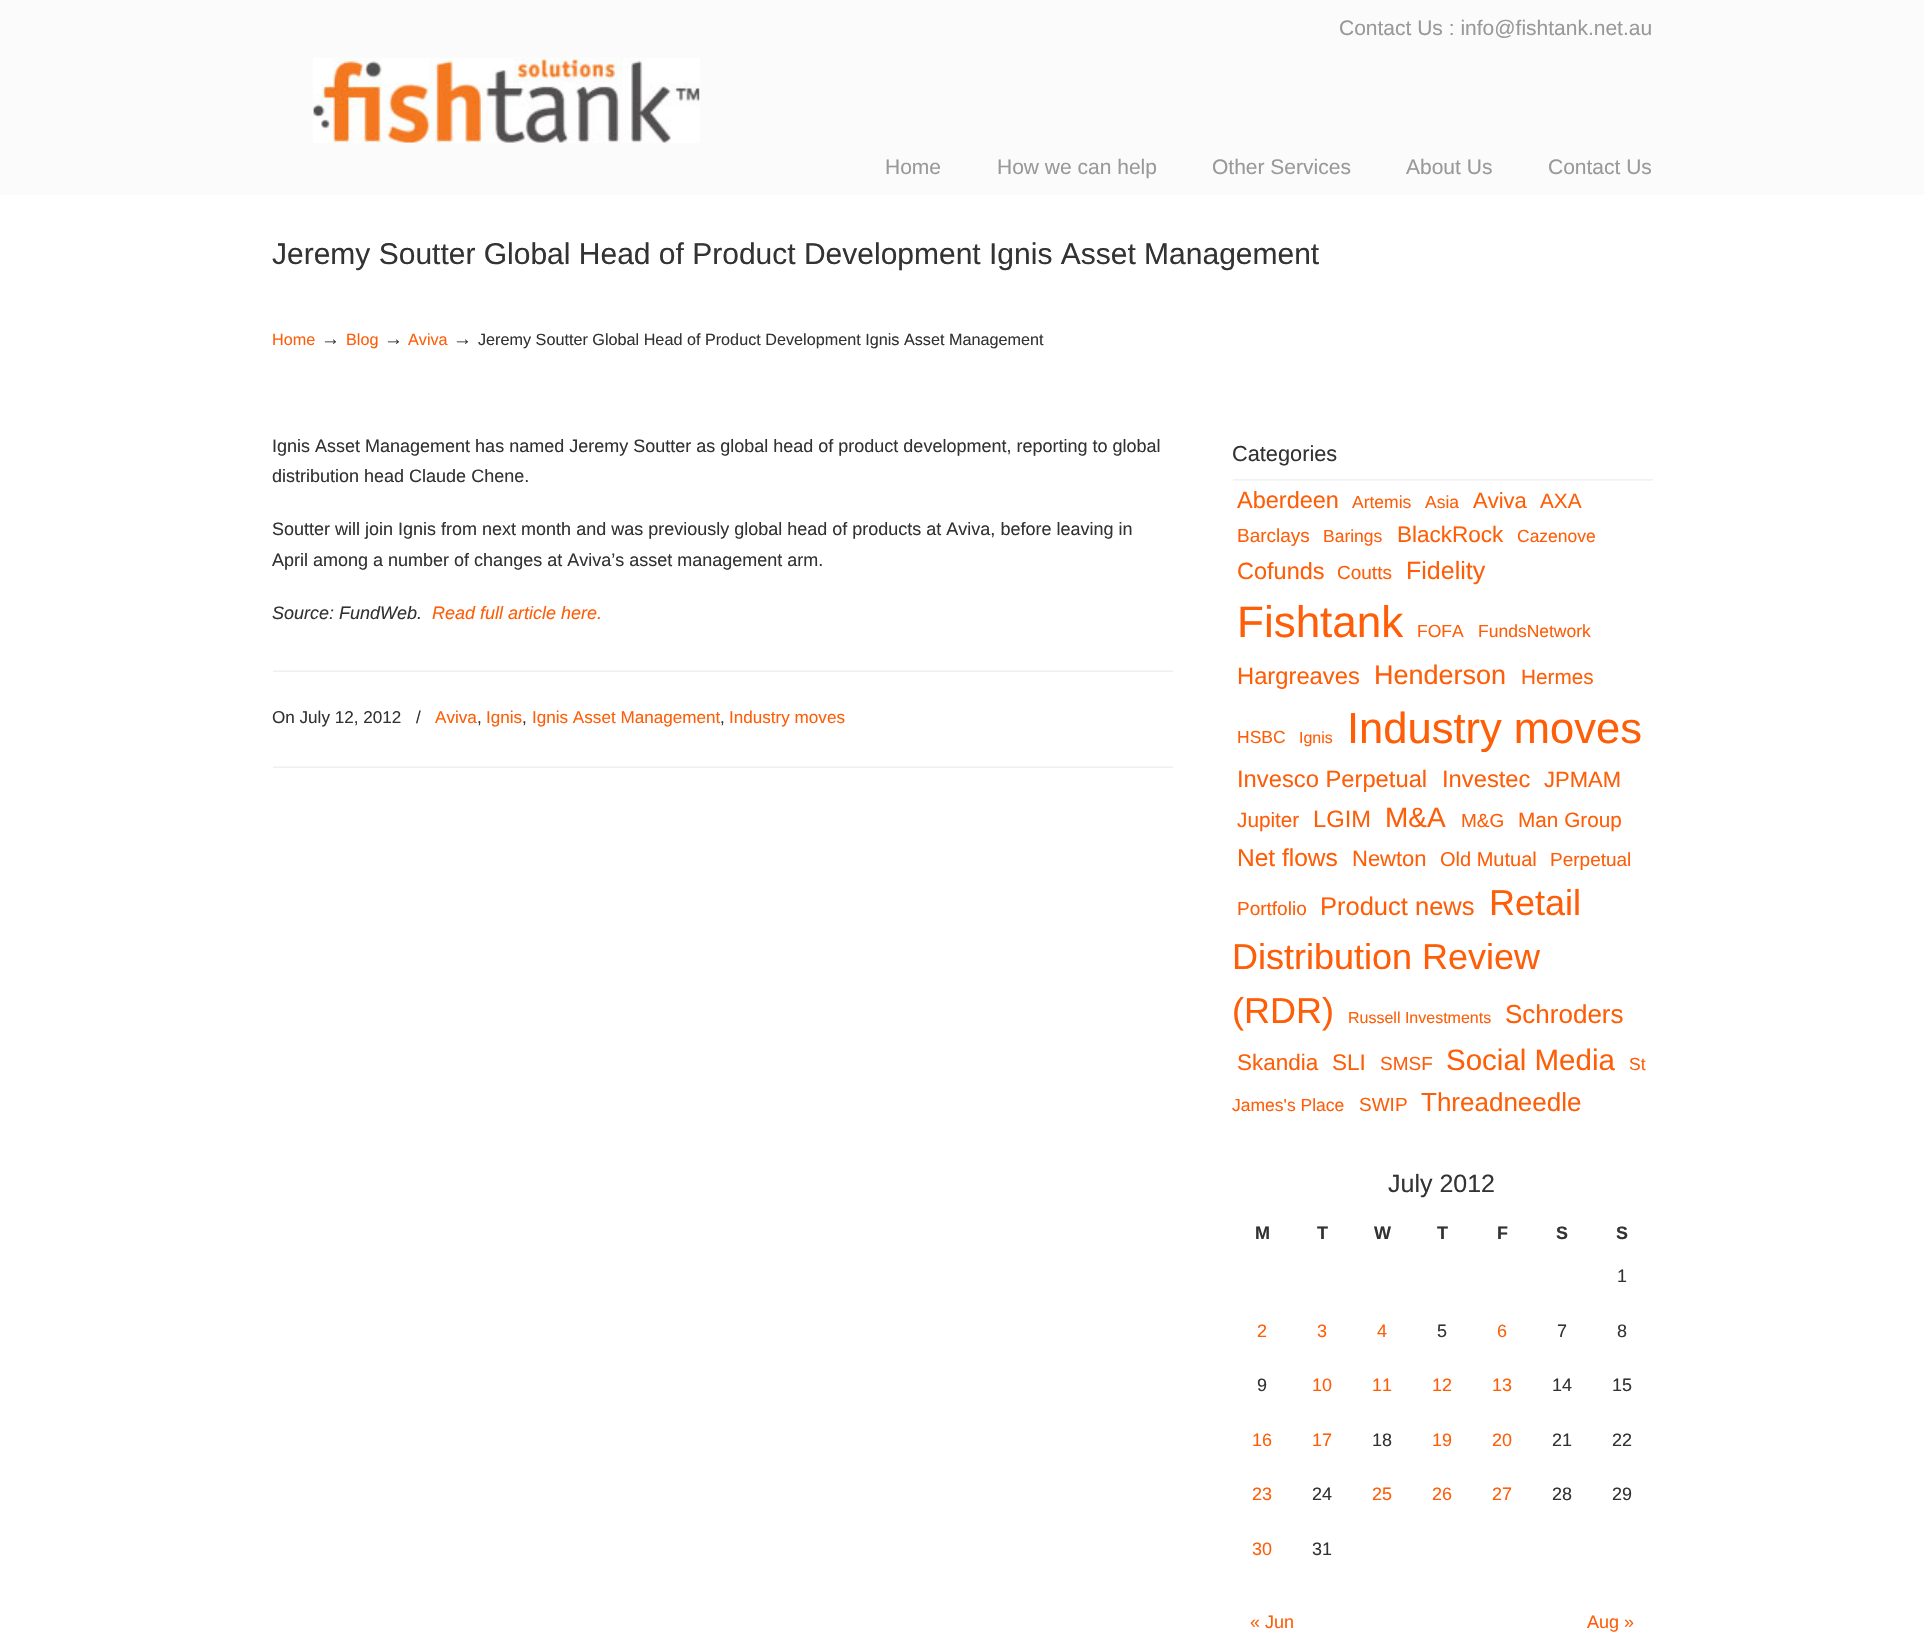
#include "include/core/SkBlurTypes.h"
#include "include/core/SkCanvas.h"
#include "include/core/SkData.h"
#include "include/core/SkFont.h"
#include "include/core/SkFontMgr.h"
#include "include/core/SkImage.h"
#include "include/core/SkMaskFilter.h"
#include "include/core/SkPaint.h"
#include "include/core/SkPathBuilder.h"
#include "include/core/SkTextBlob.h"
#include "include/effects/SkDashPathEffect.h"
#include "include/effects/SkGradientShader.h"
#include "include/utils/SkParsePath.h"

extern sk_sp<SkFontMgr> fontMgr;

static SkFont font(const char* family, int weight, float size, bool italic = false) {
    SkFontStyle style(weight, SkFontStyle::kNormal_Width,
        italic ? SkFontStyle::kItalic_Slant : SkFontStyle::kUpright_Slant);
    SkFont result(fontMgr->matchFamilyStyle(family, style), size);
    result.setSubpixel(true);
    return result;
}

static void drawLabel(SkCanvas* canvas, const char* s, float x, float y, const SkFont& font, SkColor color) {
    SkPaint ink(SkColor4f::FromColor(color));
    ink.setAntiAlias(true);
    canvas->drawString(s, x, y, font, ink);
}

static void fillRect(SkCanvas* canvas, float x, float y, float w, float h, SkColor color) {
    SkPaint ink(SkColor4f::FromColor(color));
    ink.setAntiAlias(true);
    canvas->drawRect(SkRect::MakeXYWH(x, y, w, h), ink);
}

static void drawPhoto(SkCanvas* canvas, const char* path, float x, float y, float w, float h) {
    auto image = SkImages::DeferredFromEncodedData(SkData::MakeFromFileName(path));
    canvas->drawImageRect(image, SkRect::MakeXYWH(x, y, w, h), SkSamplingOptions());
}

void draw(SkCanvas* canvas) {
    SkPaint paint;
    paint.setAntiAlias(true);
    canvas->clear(0xFFFBFBFB);
    SkFont font1 = font("Liberation Sans", 400, 21);
    drawLabel(canvas, "Contact Us : info@fishtank.net.au", 1339, 35, font1, 0xFF999999);
    drawPhoto(canvas, "assets/img1.png", 313, 58, 387, 85);
    drawLabel(canvas, "Home", 885, 174, font1, 0xFF999999);
    drawLabel(canvas, "How we can help", 997, 174, font1, 0xFF999999);
    drawLabel(canvas, "Other Services", 1212, 174, font1, 0xFF999999);
    drawLabel(canvas, "About Us", 1406, 174, font1, 0xFF999999);
    drawLabel(canvas, "Contact Us", 1548, 174, font1, 0xFF999999);
    fillRect(canvas, 0, 195, 1924, 1442, 0xFFFFFFFF);
    SkFont font2 = font("Liberation Sans", 400, 30);
    drawLabel(canvas, "Jeremy Soutter Global Head of Product Development Ignis Asset Management", 272, 264, font2, 0xFF333333);
    SkFont font3 = font("Liberation Sans", 400, 16.2f);
    drawLabel(canvas, "Home", 272, 345, font3, 0xFFFE5E08);
    SkFont font4 = font("Liberation Sans", 400, 19);
    drawLabel(canvas, "→", 321, 345, font4, 0xFF333333);
    drawLabel(canvas, "Blog", 346, 345, font3, 0xFFFE5E08);
    drawLabel(canvas, "→", 384, 345, font4, 0xFF333333);
    drawLabel(canvas, "Aviva", 408, 345, font3, 0xFFFE5E08);
    drawLabel(canvas, "→", 453, 345, font4, 0xFF333333);
    drawLabel(canvas, "Jeremy Soutter Global Head of Product Development Ignis Asset Management", 478, 345, font3, 0xFF333333);
    SkFont font5 = font("Liberation Sans", 400, 18);
    drawLabel(canvas, "Ignis Asset Management has named Jeremy Soutter as global head of product development, reporting to global", 272, 452, font5, 0xFF333333);
    drawLabel(canvas, "distribution head Claude Chene.", 272, 482, font5, 0xFF333333);
    drawLabel(canvas, "Soutter will join Ignis from next month and was previously global head of products at Aviva, before leaving in", 272, 535, font5, 0xFF333333);
    drawLabel(canvas, "April among a number of changes at Aviva’s asset management arm.", 272, 566, font5, 0xFF333333);
    SkFont font6 = font("Liberation Sans", 400, 18, true);
    drawLabel(canvas, "Source: FundWeb.", 272, 619, font6, 0xFF333333);
    drawLabel(canvas, "Read full article here.", 432, 619, font6, 0xFFFE5E08);
    drawPhoto(canvas, "assets/img2.png", 273, 670, 900, 2);
    SkFont font7 = font("Liberation Sans", 400, 17.1f);
    drawLabel(canvas, "On July 12, 2012", 272, 723, font7, 0xFF333333);
    drawLabel(canvas, "/", 416, 723, font7, 0xFF333333);
    drawLabel(canvas, "Aviva", 435, 723, font7, 0xFFFE5E08);
    drawLabel(canvas, ",", 477, 723, font7, 0xFF333333);
    drawLabel(canvas, "Ignis", 486, 723, font7, 0xFFFE5E08);
    drawLabel(canvas, ",", 522, 723, font7, 0xFF333333);
    drawLabel(canvas, "Ignis Asset Management", 532, 723, font7, 0xFFFE5E08);
    drawLabel(canvas, ",", 720, 723, font7, 0xFF333333);
    drawLabel(canvas, "Industry moves", 729, 723, font7, 0xFFFE5E08);
    drawPhoto(canvas, "assets/img2.png", 273, 766, 900, 2);
    drawPhoto(canvas, "assets/img3.png", 1233, 479, 420, 2);
    SkFont font8 = font("Liberation Sans", 400, 21.75f);
    drawLabel(canvas, "Categories", 1232, 461, font8, 0xFF333333);
    SkFont font9 = font("Liberation Sans", 400, 23.5f);
    drawLabel(canvas, "Aberdeen", 1237, 508, font9, 0xFFFE5E08);
    SkFont font10 = font("Liberation Sans", 400, 17.5f);
    drawLabel(canvas, "Artemis", 1352, 508, font10, 0xFFFE5E08);
    drawLabel(canvas, "Asia", 1425, 508, font10, 0xFFFE5E08);
    SkFont font11 = font("Liberation Sans", 400, 22);
    drawLabel(canvas, "Aviva", 1473, 508, font11, 0xFFFE5E08);
    SkFont font12 = font("Liberation Sans", 400, 20.75f);
    drawLabel(canvas, "AXA", 1540, 508, font12, 0xFFFE5E08);
    drawLabel(canvas, "Barclays", 1237, 542, font4, 0xFFFE5E08);
    drawLabel(canvas, "Barings", 1323, 542, font10, 0xFFFE5E08);
    SkFont font13 = font("Liberation Sans", 400, 22.5f);
    drawLabel(canvas, "BlackRock", 1397, 542, font13, 0xFFFE5E08);
    drawLabel(canvas, "Cazenove", 1517, 542, font10, 0xFFFE5E08);
    drawLabel(canvas, "Cofunds", 1237, 579, font9, 0xFFFE5E08);
    drawLabel(canvas, "Coutts", 1337, 579, font4, 0xFFFE5E08);
    SkFont font14 = font("Liberation Sans", 400, 25);
    drawLabel(canvas, "Fidelity", 1406, 579, font14, 0xFFFE5E08);
    SkFont font15 = font("Liberation Sans", 400, 44);
    drawLabel(canvas, "Fishtank", 1237, 637, font15, 0xFFFE5E08);
    drawLabel(canvas, "FOFA", 1417, 637, font10, 0xFFFE5E08);
    drawLabel(canvas, "FundsNetwork", 1478, 637, font10, 0xFFFE5E08);
    SkFont font16 = font("Liberation Sans", 400, 23.75f);
    drawLabel(canvas, "Hargreaves", 1237, 684, font16, 0xFFFE5E08);
    SkFont font17 = font("Liberation Sans", 400, 27);
    drawLabel(canvas, "Henderson", 1374, 684, font17, 0xFFFE5E08);
    drawLabel(canvas, "Hermes", 1521, 684, font12, 0xFFFE5E08);
    drawLabel(canvas, "HSBC", 1237, 743, font10, 0xFFFE5E08);
    SkFont font18 = font("Liberation Sans", 400, 16);
    drawLabel(canvas, "Ignis", 1299, 743, font18, 0xFFFE5E08);
    SkFont font19 = font("Liberation Sans", 400, 43.5f);
    drawLabel(canvas, "Industry moves", 1347, 743, font19, 0xFFFE5E08);
    drawLabel(canvas, "Invesco Perpetual", 1237, 787, font16, 0xFFFE5E08);
    drawLabel(canvas, "Investec", 1442, 787, font16, 0xFFFE5E08);
    drawLabel(canvas, "JPMAM", 1544, 787, font11, 0xFFFE5E08);
    drawLabel(canvas, "Jupiter", 1237, 827, font12, 0xFFFE5E08);
    drawLabel(canvas, "LGIM", 1313, 827, font16, 0xFFFE5E08);
    SkFont font20 = font("Liberation Sans", 400, 28);
    drawLabel(canvas, "M&A", 1385, 827, font20, 0xFFFE5E08);
    drawLabel(canvas, "M&G", 1461, 827, font4, 0xFFFE5E08);
    drawLabel(canvas, "Man Group", 1518, 827, font12, 0xFFFE5E08);
    SkFont font21 = font("Liberation Sans", 400, 24.5f);
    drawLabel(canvas, "Net flows", 1237, 866, font21, 0xFFFE5E08);
    drawLabel(canvas, "Newton", 1352, 866, font11, 0xFFFE5E08);
    SkFont font22 = font("Liberation Sans", 400, 20);
    drawLabel(canvas, "Old Mutual", 1440, 866, font22, 0xFFFE5E08);
    drawLabel(canvas, "Perpetual", 1550, 866, font4, 0xFFFE5E08);
    drawLabel(canvas, "Portfolio", 1237, 915, font4, 0xFFFE5E08);
    SkFont font23 = font("Liberation Sans", 400, 25.5f);
    drawLabel(canvas, "Product news", 1320, 915, font23, 0xFFFE5E08);
    SkFont font24 = font("Liberation Sans", 400, 36);
    drawLabel(canvas, "Retail", 1489, 915, font24, 0xFFFE5E08);
    drawLabel(canvas, "Distribution Review", 1232, 969, font24, 0xFFFE5E08);
    drawLabel(canvas, "(RDR)", 1232, 1023, font24, 0xFFFE5E08);
    drawLabel(canvas, "Russell Investments", 1348, 1023, font18, 0xFFFE5E08);
    SkFont font25 = font("Liberation Sans", 400, 26);
    drawLabel(canvas, "Schroders", 1505, 1023, font25, 0xFFFE5E08);
    drawLabel(canvas, "Skandia", 1237, 1070, font13, 0xFFFE5E08);
    drawLabel(canvas, "SLI", 1332, 1070, font13, 0xFFFE5E08);
    drawLabel(canvas, "SMSF", 1380, 1070, font4, 0xFFFE5E08);
    SkFont font26 = font("Liberation Sans", 400, 29.5f);
    drawLabel(canvas, "Social Media", 1446, 1070, font26, 0xFFFE5E08);
    drawLabel(canvas, "St", 1629, 1070, font10, 0xFFFE5E08);
    drawLabel(canvas, "James's Place", 1232, 1111, font10, 0xFFFE5E08);
    drawLabel(canvas, "SWIP", 1359, 1111, font4, 0xFFFE5E08);
    drawLabel(canvas, "Threadneedle", 1421, 1111, font25, 0xFFFE5E08);
    drawLabel(canvas, "July 2012", 1388, 1192, font14, 0xFF333333);
    SkFont font27 = font("Liberation Sans", 700, 18);
    drawLabel(canvas, "M", 1255, 1239, font27, 0xFF333333);
    drawLabel(canvas, "T", 1317, 1239, font27, 0xFF333333);
    drawLabel(canvas, "W", 1374, 1239, font27, 0xFF333333);
    drawLabel(canvas, "T", 1437, 1239, font27, 0xFF333333);
    drawLabel(canvas, "F", 1497, 1239, font27, 0xFF333333);
    drawLabel(canvas, "S", 1556, 1239, font27, 0xFF333333);
    drawLabel(canvas, "S", 1616, 1239, font27, 0xFF333333);
    drawLabel(canvas, "1", 1617, 1282, font5, 0xFF333333);
    drawLabel(canvas, "2", 1257, 1337, font5, 0xFFFE5E08);
    drawLabel(canvas, "3", 1317, 1337, font5, 0xFFFE5E08);
    drawLabel(canvas, "4", 1377, 1337, font5, 0xFFFE5E08);
    drawLabel(canvas, "5", 1437, 1337, font5, 0xFF333333);
    drawLabel(canvas, "6", 1497, 1337, font5, 0xFFFE5E08);
    drawLabel(canvas, "7", 1557, 1337, font5, 0xFF333333);
    drawLabel(canvas, "8", 1617, 1337, font5, 0xFF333333);
    drawLabel(canvas, "9", 1257, 1391, font5, 0xFF333333);
    drawLabel(canvas, "10", 1312, 1391, font5, 0xFFFE5E08);
    drawLabel(canvas, "11", 1372, 1391, font5, 0xFFFE5E08);
    drawLabel(canvas, "12", 1432, 1391, font5, 0xFFFE5E08);
    drawLabel(canvas, "13", 1492, 1391, font5, 0xFFFE5E08);
    drawLabel(canvas, "14", 1552, 1391, font5, 0xFF333333);
    drawLabel(canvas, "15", 1612, 1391, font5, 0xFF333333);
    drawLabel(canvas, "16", 1252, 1446, font5, 0xFFFE5E08);
    drawLabel(canvas, "17", 1312, 1446, font5, 0xFFFE5E08);
    drawLabel(canvas, "18", 1372, 1446, font5, 0xFF333333);
    drawLabel(canvas, "19", 1432, 1446, font5, 0xFFFE5E08);
    drawLabel(canvas, "20", 1492, 1446, font5, 0xFFFE5E08);
    drawLabel(canvas, "21", 1552, 1446, font5, 0xFF333333);
    drawLabel(canvas, "22", 1612, 1446, font5, 0xFF333333);
    drawLabel(canvas, "23", 1252, 1500, font5, 0xFFFE5E08);
    drawLabel(canvas, "24", 1312, 1500, font5, 0xFF333333);
    drawLabel(canvas, "25", 1372, 1500, font5, 0xFFFE5E08);
    drawLabel(canvas, "26", 1432, 1500, font5, 0xFFFE5E08);
    drawLabel(canvas, "27", 1492, 1500, font5, 0xFFFE5E08);
    drawLabel(canvas, "28", 1552, 1500, font5, 0xFF333333);
    drawLabel(canvas, "29", 1612, 1500, font5, 0xFF333333);
    drawLabel(canvas, "30", 1252, 1555, font5, 0xFFFE5E08);
    drawLabel(canvas, "31", 1312, 1555, font5, 0xFF333333);
    drawLabel(canvas, "« Jun", 1250, 1628, font5, 0xFFFE5E08);
    drawLabel(canvas, "Aug »", 1587, 1628, font5, 0xFFFE5E08);
}
